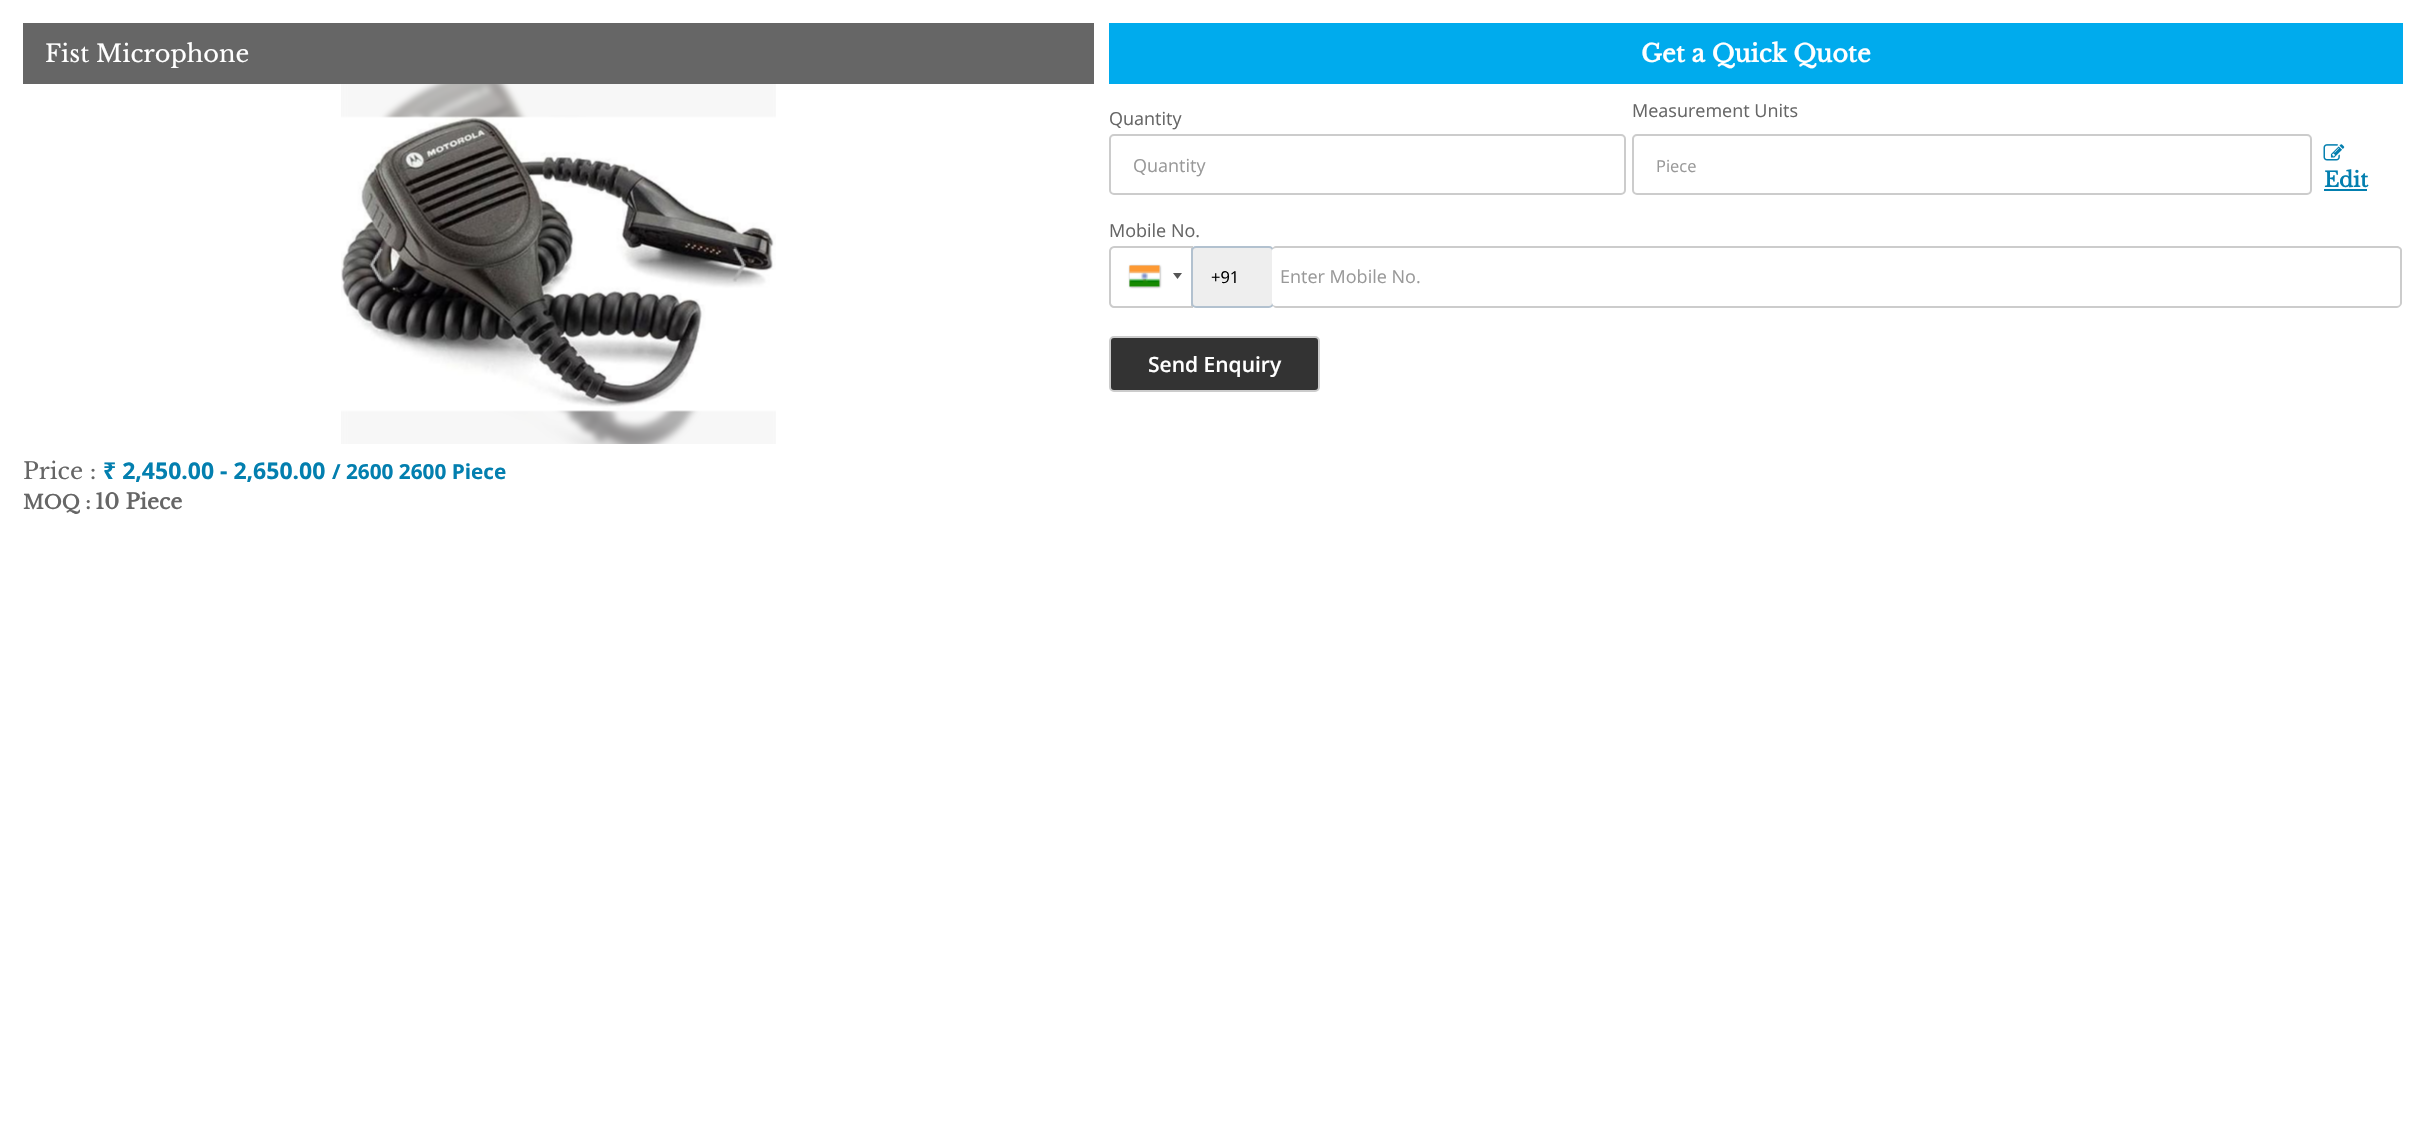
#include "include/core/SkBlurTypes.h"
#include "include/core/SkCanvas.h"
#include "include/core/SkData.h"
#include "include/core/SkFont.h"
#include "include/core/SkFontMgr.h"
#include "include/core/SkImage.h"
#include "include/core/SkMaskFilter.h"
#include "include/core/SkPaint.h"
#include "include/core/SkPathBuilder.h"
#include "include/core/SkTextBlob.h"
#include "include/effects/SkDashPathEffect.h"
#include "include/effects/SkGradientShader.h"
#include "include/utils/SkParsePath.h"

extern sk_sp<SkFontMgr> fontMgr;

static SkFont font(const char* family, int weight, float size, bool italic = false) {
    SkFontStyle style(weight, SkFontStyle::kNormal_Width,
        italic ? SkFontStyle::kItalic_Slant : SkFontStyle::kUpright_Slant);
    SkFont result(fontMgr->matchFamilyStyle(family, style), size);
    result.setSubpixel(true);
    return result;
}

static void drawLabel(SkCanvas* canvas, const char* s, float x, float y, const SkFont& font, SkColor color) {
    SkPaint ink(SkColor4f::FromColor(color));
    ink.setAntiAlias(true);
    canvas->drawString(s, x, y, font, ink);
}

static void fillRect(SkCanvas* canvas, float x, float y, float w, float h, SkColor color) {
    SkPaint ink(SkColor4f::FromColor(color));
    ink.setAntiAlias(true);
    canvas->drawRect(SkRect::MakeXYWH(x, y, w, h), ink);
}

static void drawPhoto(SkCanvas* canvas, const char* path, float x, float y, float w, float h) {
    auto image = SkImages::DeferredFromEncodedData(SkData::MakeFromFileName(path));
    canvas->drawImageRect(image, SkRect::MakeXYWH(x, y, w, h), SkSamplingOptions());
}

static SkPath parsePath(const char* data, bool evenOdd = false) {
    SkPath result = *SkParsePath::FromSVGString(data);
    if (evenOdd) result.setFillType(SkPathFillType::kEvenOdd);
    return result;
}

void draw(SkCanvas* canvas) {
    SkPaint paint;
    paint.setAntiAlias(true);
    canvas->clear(0xFFFFFFFF);
    fillRect(canvas, 341, 84, 7, 360, 0xFFF7F7F7);
    fillRect(canvas, 23, 23, 1071, 61, 0xFF666666);
    SkFont font1 = font("Libre Baskerville", 400, 24);
    drawLabel(canvas, "Fist Microphone", 45, 62, font1, 0xFFFFFFFF);
    drawPhoto(canvas, "assets/img1.png", 341, 84, 435, 360);
    canvas->save();
    canvas->clipRect(SkRect::MakeXYWH(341, 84, 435, 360));
    paint.setColor(0x80F7F7F7);
    paint.setMaskFilter(SkMaskFilter::MakeBlur(kNormal_SkBlurStyle, 3));
    canvas->drawRect(SkRect::MakeXYWH(341, 69, 450, 390), paint);
    paint.setMaskFilter(nullptr);
    canvas->restore();
    fillRect(canvas, 1109, 23, 1294, 61, 0xFF00ABED);
    paint.setStroke(true);
    paint.setStrokeWidth(2);
    paint.setColor(0xFFCCCCCC);
    canvas->drawRoundRect(SkRect::MakeXYWH(1110, 135, 515, 59), 4, 4, paint);
    paint.setStroke(false);
    paint.setColor(0xFF333333);
    canvas->drawRoundRect(SkRect::MakeXYWH(1110, 337, 209, 54), 4, 4, paint);
    paint.setStroke(true);
    paint.setColor(0xFFCCCCCC);
    canvas->drawRoundRect(SkRect::MakeXYWH(1110, 337, 209, 54), 4, 4, paint);
    canvas->save();
    canvas->clipRect(SkRect::MakeXYWH(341, 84, 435, 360));
    paint.setStroke(false);
    paint.setColor(0x80F7F7F7);
    paint.setMaskFilter(SkMaskFilter::MakeBlur(kNormal_SkBlurStyle, 3));
    canvas->drawRect(SkRect::MakeXYWH(776, 69, 450, 390), paint);
    paint.setMaskFilter(nullptr);
    canvas->restore();
    drawPhoto(canvas, "assets/img2.png", 341, 116, 435, 296);
    drawPhoto(canvas, "assets/img3.png", 369, 247, 14, 36);
    drawPhoto(canvas, "assets/img4.png", 732, 247, 14, 35);
    SkFont font2 = font("Libre Baskerville", 400, 23);
    drawLabel(canvas, "Price :", 23, 479, font2, 0xFF666666);
    SkFont font3 = font("Noto Sans", 700, 23);
    drawLabel(canvas, "₹ 2,450.00 - 2,650.00", 103, 479, font3, 0xFF037FAF);
    SkFont font4 = font("Open Sans", 700, 20.75f);
    drawLabel(canvas, "/ 2600 2600 Piece", 332, 479, font4, 0xFF037FAF);
    SkFont font5 = font("Libre Baskerville", 700, 19);
    drawLabel(canvas, "MOQ :", 23, 509, font5, 0xFF666666);
    SkFont font6 = font("Libre Baskerville", 700, 21);
    drawLabel(canvas, "10 Piece", 95, 509, font6, 0xFF666666);
    SkFont font7 = font("Libre Baskerville", 700, 24);
    drawLabel(canvas, "Get a Quick Quote", 1641, 62, font7, 0xFFFFFFFF);
    SkFont font8 = font("Open Sans", 400, 18);
    drawLabel(canvas, "Quantity", 1109, 125, font8, 0xFF666666);
    drawLabel(canvas, "Quantity", 1133, 172, font8, 0xFF999999);
    drawLabel(canvas, "Measurement Units", 1632, 117, font8, 0xFF666666);
    paint.setStroke(true);
    paint.setColor(0xFFCCCCCC);
    canvas->drawRoundRect(SkRect::MakeXYWH(1633, 135, 678, 59), 4, 4, paint);
    SkFont font9 = font("Open Sans", 400, 16.5f);
    drawLabel(canvas, "Piece", 1656, 172, font9, 0xFF999999);
    drawPhoto(canvas, "assets/img5.png", 2323, 144, 22, 17);
    SkFont font10 = font("Libre Baskerville", 700, 20.75f);
    drawLabel(canvas, "Edit", 2324, 187, font10, 0xFF037FAF);
    fillRect(canvas, 2324, 189, 43, 2, 0xFF037FAF);
    drawLabel(canvas, "Mobile No.", 1109, 237, font8, 0xFF666666);
    canvas->drawPath(parsePath("M1114 247H1192V307H1114C1112 307 1110 305 1110 303V251C1110 249 1112 247 1114 247Z"), paint);
    paint.setStroke(false);
    paint.setColor(0xFF888888);
    paint.setMaskFilter(SkMaskFilter::MakeBlur(kNormal_SkBlurStyle, 1));
    canvas->drawRect(SkRect::MakeXYWH(1130, 266, 30, 21), paint);
    paint.setMaskFilter(nullptr);
    fillRect(canvas, 1130, 266, 30, 21, 0xFFDBDBDB);
    drawPhoto(canvas, "assets/img6.png", 1129, 265, 31, 22);
    paint.setColor(0xFF555555);
    canvas->drawPath(parsePath("M1173 273H1182L1177.5 279Z"), paint);
    paint.setColor(0xFFEEEEEE);
    canvas->drawRoundRect(SkRect::MakeXYWH(1192, 247, 81, 60), 4, 4, paint);
    paint.setStroke(true);
    paint.setColor(0xFFB2C1CF);
    canvas->drawRoundRect(SkRect::MakeXYWH(1192, 247, 81, 60), 4, 4, paint);
    drawLabel(canvas, "+91", 1211, 283, font9, 0xFF000000);
    paint.setStroke(false);
    paint.setColor(0xFFFFFFFF);
    canvas->drawPath(parsePath("M1276 248H2397C2399 248 2400 249 2400 250V303C2400 305 2399 306 2397 306H1276C1274 306 1272 305 1272 303V250C1272 249 1274 248 1276 248Z"), paint);
    paint.setColor(0xFFCCCCCC);
    canvas->drawPath(parsePath("M1276 246H2397C2399 246 2402 248 2402 250V303C2402 305 2399 308 2397 308H1276C1274 308 1272 305 1272 303V250C1272 248 1274 246 1276 246ZM1276 248H2397C2399 248 2400 249 2400 250V303C2400 305 2399 306 2397 306H1276C1274 306 1272 305 1272 303V250C1272 249 1274 248 1276 248Z", true), paint);
    drawLabel(canvas, "Enter Mobile No.", 1280, 283, font8, 0xFF999999);
    SkFont font11 = font("Open Sans", 600, 21);
    drawLabel(canvas, "Send Enquiry", 1148, 372, font11, 0xFFFFFFFF);
}
